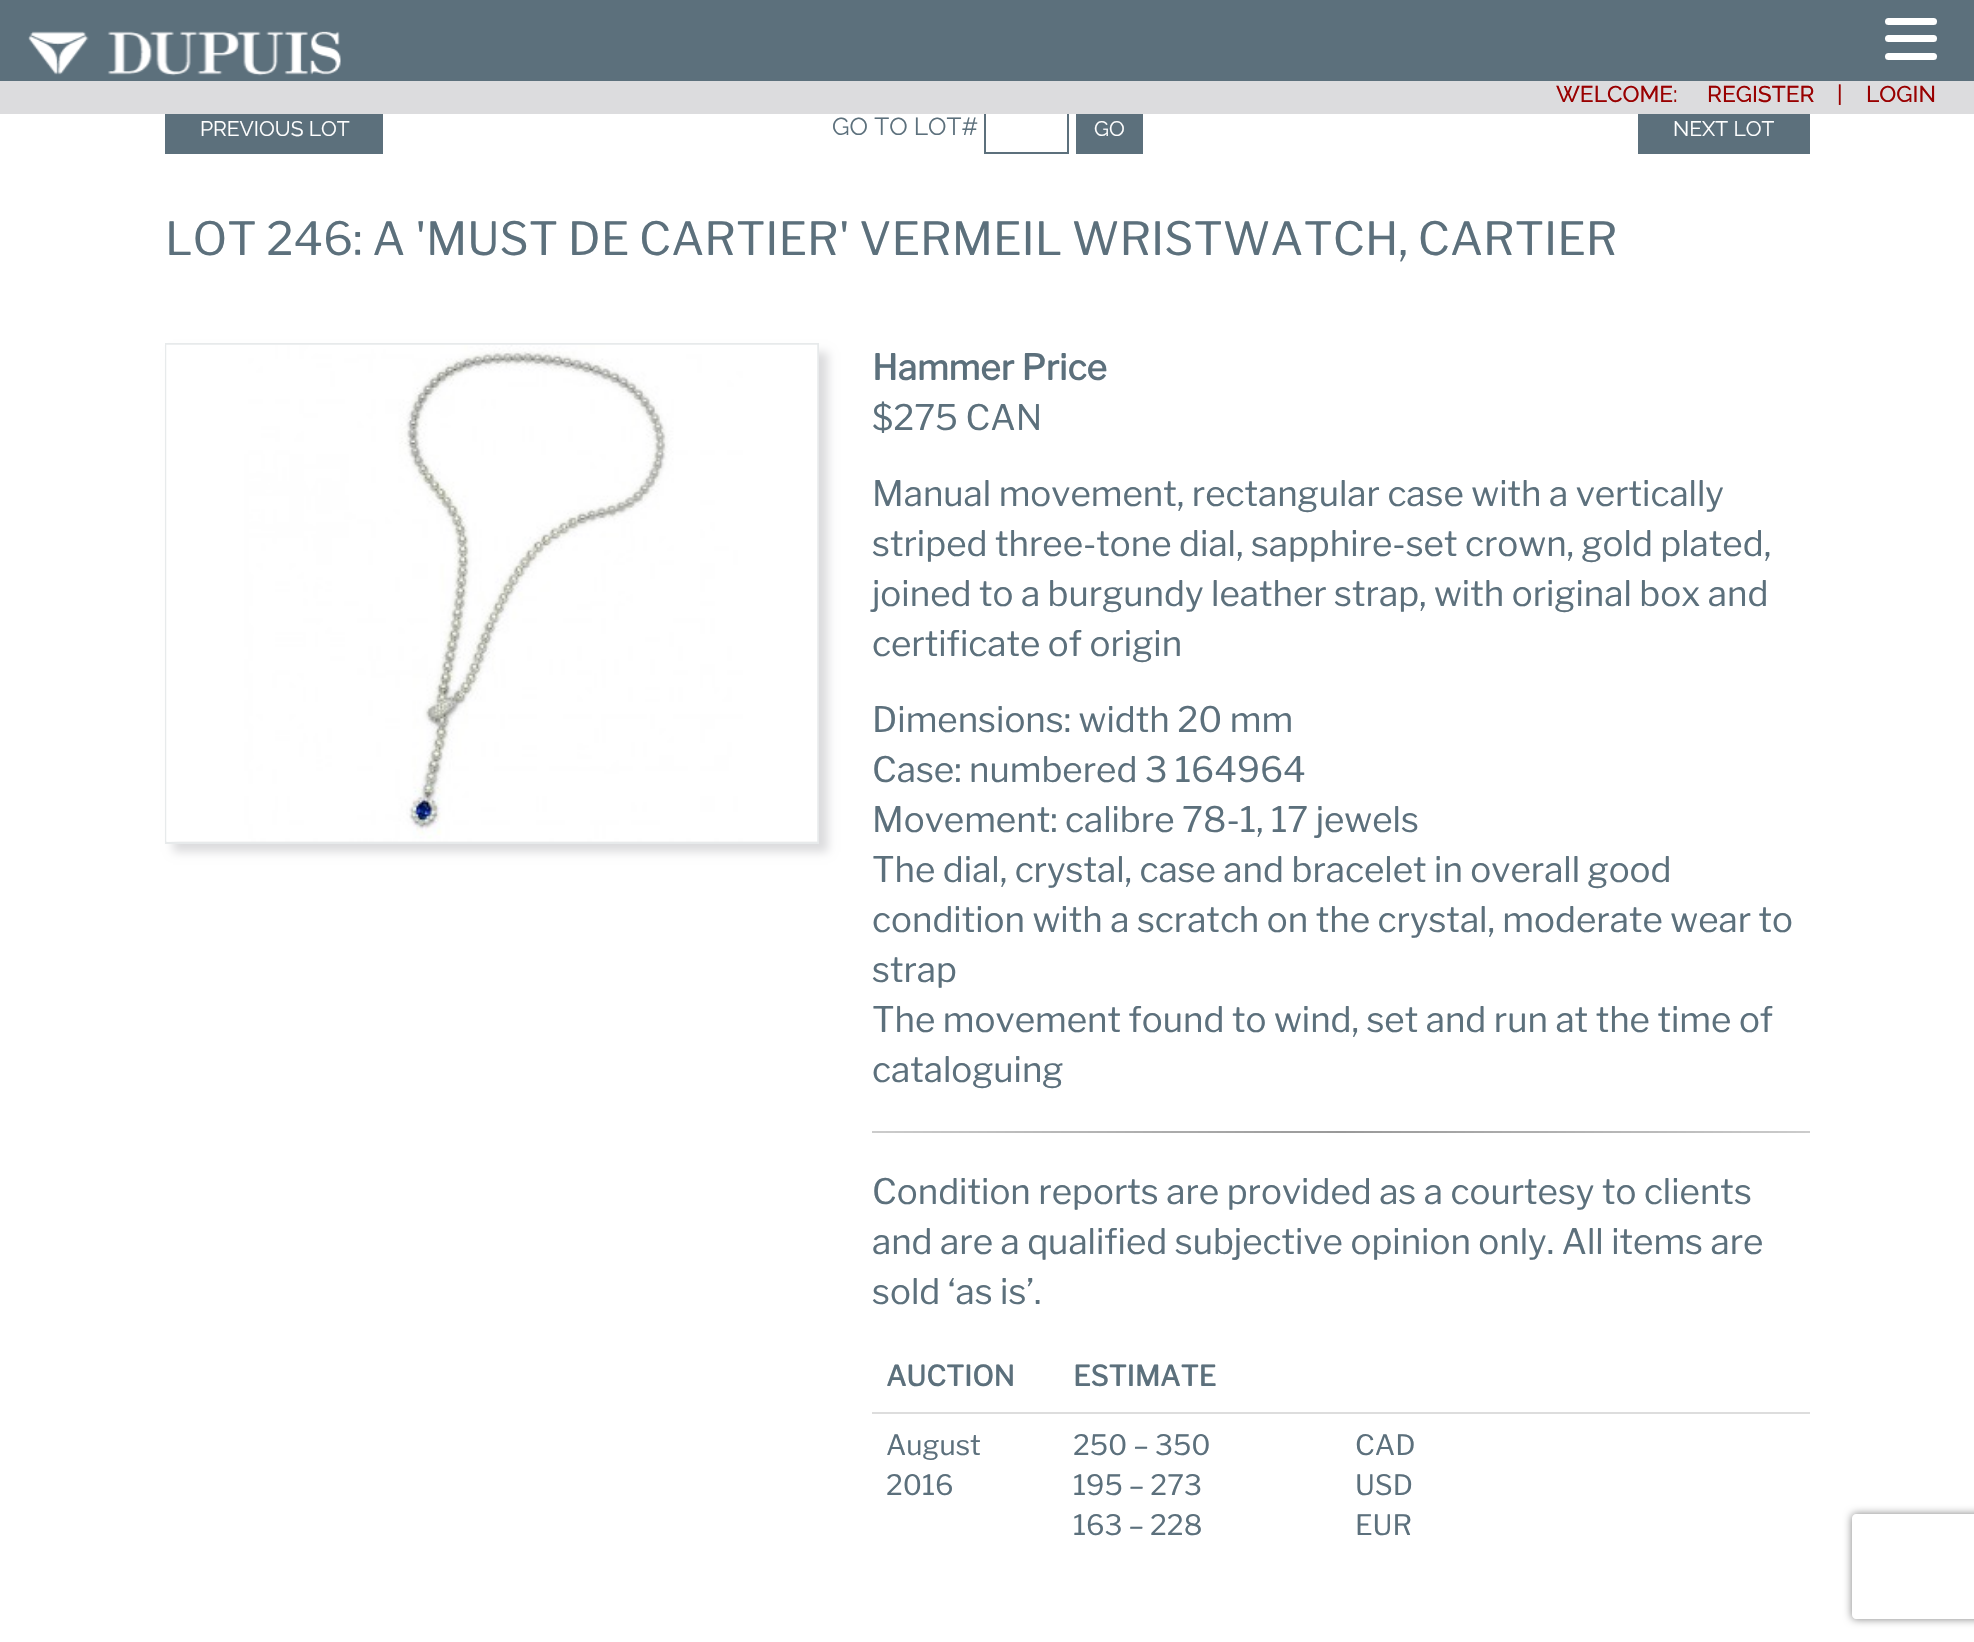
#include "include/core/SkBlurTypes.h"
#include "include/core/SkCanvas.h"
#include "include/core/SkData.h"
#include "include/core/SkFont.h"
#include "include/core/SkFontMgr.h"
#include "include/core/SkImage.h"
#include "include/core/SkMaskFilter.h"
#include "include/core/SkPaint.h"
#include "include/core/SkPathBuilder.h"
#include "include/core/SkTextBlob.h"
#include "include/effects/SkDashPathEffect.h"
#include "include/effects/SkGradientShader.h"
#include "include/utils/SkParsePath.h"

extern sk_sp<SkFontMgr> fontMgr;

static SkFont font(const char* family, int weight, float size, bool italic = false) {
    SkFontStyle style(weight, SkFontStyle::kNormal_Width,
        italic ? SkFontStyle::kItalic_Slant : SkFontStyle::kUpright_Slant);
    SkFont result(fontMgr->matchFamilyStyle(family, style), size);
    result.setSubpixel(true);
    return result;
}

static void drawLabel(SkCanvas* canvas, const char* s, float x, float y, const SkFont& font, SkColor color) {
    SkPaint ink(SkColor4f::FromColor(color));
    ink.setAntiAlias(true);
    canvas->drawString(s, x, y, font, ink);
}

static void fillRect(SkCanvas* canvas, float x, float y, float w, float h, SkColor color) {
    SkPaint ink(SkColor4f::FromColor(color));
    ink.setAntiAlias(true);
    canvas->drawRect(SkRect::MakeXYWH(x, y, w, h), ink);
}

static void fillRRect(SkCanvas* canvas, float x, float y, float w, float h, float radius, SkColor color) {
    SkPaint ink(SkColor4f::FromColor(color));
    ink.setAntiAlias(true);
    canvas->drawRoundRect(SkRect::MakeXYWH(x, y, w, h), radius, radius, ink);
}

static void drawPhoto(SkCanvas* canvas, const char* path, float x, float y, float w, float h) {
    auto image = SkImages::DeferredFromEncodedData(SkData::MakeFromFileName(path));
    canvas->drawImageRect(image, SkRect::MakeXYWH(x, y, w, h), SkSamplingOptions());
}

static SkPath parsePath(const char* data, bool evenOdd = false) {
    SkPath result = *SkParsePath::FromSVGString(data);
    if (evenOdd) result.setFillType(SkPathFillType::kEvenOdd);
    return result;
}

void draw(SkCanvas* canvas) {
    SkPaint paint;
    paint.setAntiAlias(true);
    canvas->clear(0xFFFFFFFF);
    fillRect(canvas, 0, 0, 1974, 81, 0xFF5C707C);
    drawPhoto(canvas, "assets/img1.png", 28, 31, 313, 45);
    fillRRect(canvas, 1885, 18, 52, 7, 3.5f, 0xFFFFFFFF);
    fillRRect(canvas, 1885, 35, 52, 7, 3.5f, 0xFFFFFFFF);
    fillRRect(canvas, 1885, 53, 52, 7, 3.5f, 0xFFFFFFFF);
    paint.setStroke(true);
    paint.setStrokeWidth(2);
    paint.setColor(0xFF5C707C);
    canvas->drawRect(SkRect::MakeXYWH(985, 106, 83, 47), paint);
    fillRect(canvas, 0, 81, 1974, 33, 0xFFDCDCDE);
    SkFont font1 = font("Raleway", 500, 22.75f);
    drawLabel(canvas, "WELCOME:", 1556, 102, font1, 0xFF990000);
    drawLabel(canvas, "REGISTER", 1707, 102, font1, 0xFF990000);
    drawLabel(canvas, "|", 1837, 102, font1, 0xFF990000);
    drawLabel(canvas, "LOGIN", 1866, 102, font1, 0xFF990000);
    fillRect(canvas, 165, 114, 218, 40, 0xFF5C707C);
    SkFont font2 = font("Raleway", 400, 21);
    drawLabel(canvas, "PREVIOUS LOT", 200, 136, font2, 0xFFFFFFFF);
    SkFont font3 = font("Raleway", 400, 24.5f);
    drawLabel(canvas, "GO TO LOT#", 832, 135, font3, 0xFF5C707C);
    fillRect(canvas, 1076, 114, 67, 40, 0xFF5C707C);
    drawLabel(canvas, "GO", 1094, 136, font2, 0xFFFFFFFF);
    fillRect(canvas, 1638, 114, 172, 40, 0xFF5C707C);
    drawLabel(canvas, "NEXT LOT", 1673, 136, font2, 0xFFFFFFFF);
    SkFont font4 = font("Libre Franklin", 100, 45.5f);
    drawLabel(canvas, "LOT 246: A 'MUST DE CARTIER' VERMEIL WRISTWATCH, CARTIER", 165, 255, font4, 0xFF5C707C);
    paint.setStroke(false);
    paint.setColor(0xFFDCDCDE);
    paint.setMaskFilter(SkMaskFilter::MakeBlur(kNormal_SkBlurStyle, 4.5f));
    canvas->drawRect(SkRect::MakeXYWH(173, 352, 655, 500), paint);
    paint.setMaskFilter(nullptr);
    paint.setStroke(true);
    paint.setColor(0xFFE7EAEB);
    canvas->drawRect(SkRect::MakeXYWH(166, 344, 652, 499), paint);
    drawPhoto(canvas, "assets/img2.png", 166, 344, 652, 498);
    SkFont font5 = font("Libre Franklin", 700, 35);
    drawLabel(canvas, "Hammer Price", 872, 380, font5, 0xFF5C707C);
    SkFont font6 = font("Libre Franklin", 100, 35);
    drawLabel(canvas, "$275 CAN", 872, 430, font6, 0xFF5C707C);
    drawLabel(canvas, "Manual movement, rectangular case with a vertically", 872, 506, font6, 0xFF5C707C);
    drawLabel(canvas, "striped three-tone dial, sapphire-set crown, gold plated,", 872, 556, font6, 0xFF5C707C);
    drawLabel(canvas, "joined to a burgundy leather strap, with original box and", 872, 606, font6, 0xFF5C707C);
    drawLabel(canvas, "certificate of origin", 872, 656, font6, 0xFF5C707C);
    drawLabel(canvas, "Dimensions: width 20 mm", 872, 732, font6, 0xFF5C707C);
    drawLabel(canvas, "Case: numbered 3 164964", 872, 782, font6, 0xFF5C707C);
    drawLabel(canvas, "Movement: calibre 78-1, 17 jewels", 872, 832, font6, 0xFF5C707C);
    drawLabel(canvas, "The dial, crystal, case and bracelet in overall good", 872, 882, font6, 0xFF5C707C);
    drawLabel(canvas, "condition with a scratch on the crystal, moderate wear to", 872, 932, font6, 0xFF5C707C);
    drawLabel(canvas, "strap", 872, 982, font6, 0xFF5C707C);
    drawLabel(canvas, "The movement found to wind, set and run at the time of", 872, 1032, font6, 0xFF5C707C);
    drawLabel(canvas, "cataloguing", 872, 1082, font6, 0xFF5C707C);
    paint.setStroke(false);
    {
        const SkColor colors[] = {0xFFCCCCCC, 0xFF999999, 0xFFCCCCCC};
        const float stops[] = {0, 0.5f, 1};
        const SkPoint ends[] = {{872, 1131}, {1810, 1131}};
        paint.setShader(SkGradientShader::MakeLinear(ends, colors, stops, 3, SkTileMode::kClamp));
        paint.setAlpha(255);
    }
    canvas->drawRect(SkRect::MakeXYWH(872, 1131, 938, 2), paint);
    drawLabel(canvas, "Condition reports are provided as a courtesy to clients", 872, 1204, font6, 0xFF5C707C);
    drawLabel(canvas, "and are a qualified subjective opinion only. All items are", 872, 1254, font6, 0xFF5C707C);
    drawLabel(canvas, "sold ‘as is’.", 872, 1304, font6, 0xFF5C707C);
    SkFont font7 = font("Libre Franklin", 700, 28);
    drawLabel(canvas, "AUCTION", 886, 1386, font7, 0xFF5C707C);
    drawLabel(canvas, "ESTIMATE", 1073, 1386, font7, 0xFF5C707C);
    SkFont font8 = font("Libre Franklin", 100, 28);
    drawLabel(canvas, "August", 886, 1455, font8, 0xFF5C707C);
    drawLabel(canvas, "2016", 886, 1495, font8, 0xFF5C707C);
    drawLabel(canvas, "250 – 350", 1073, 1455, font8, 0xFF5C707C);
    drawLabel(canvas, "195 – 273", 1073, 1495, font8, 0xFF5C707C);
    drawLabel(canvas, "163 – 228", 1073, 1535, font8, 0xFF5C707C);
    fillRect(canvas, 872, 1412, 938, 2, 0xFFDDDDDD);
    drawLabel(canvas, "CAD", 1355, 1455, font8, 0xFF5C707C);
    drawLabel(canvas, "USD", 1355, 1495, font8, 0xFF5C707C);
    drawLabel(canvas, "EUR", 1355, 1535, font8, 0xFF5C707C);
    canvas->save();
    canvas->clipPath(parsePath("M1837 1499H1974V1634H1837ZM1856 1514H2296C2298 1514 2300 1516 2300 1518V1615C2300 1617 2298 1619 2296 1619H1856C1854 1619 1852 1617 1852 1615V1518C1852 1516 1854 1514 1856 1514Z", true), true);
    paint.setShader(nullptr);
    paint.setColor(0xFF808080);
    paint.setMaskFilter(SkMaskFilter::MakeBlur(kNormal_SkBlurStyle, 4.5f));
    canvas->drawRoundRect(SkRect::MakeXYWH(1852, 1514, 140, 105), 4, 4, paint);
    paint.setMaskFilter(nullptr);
    canvas->restore();
}
